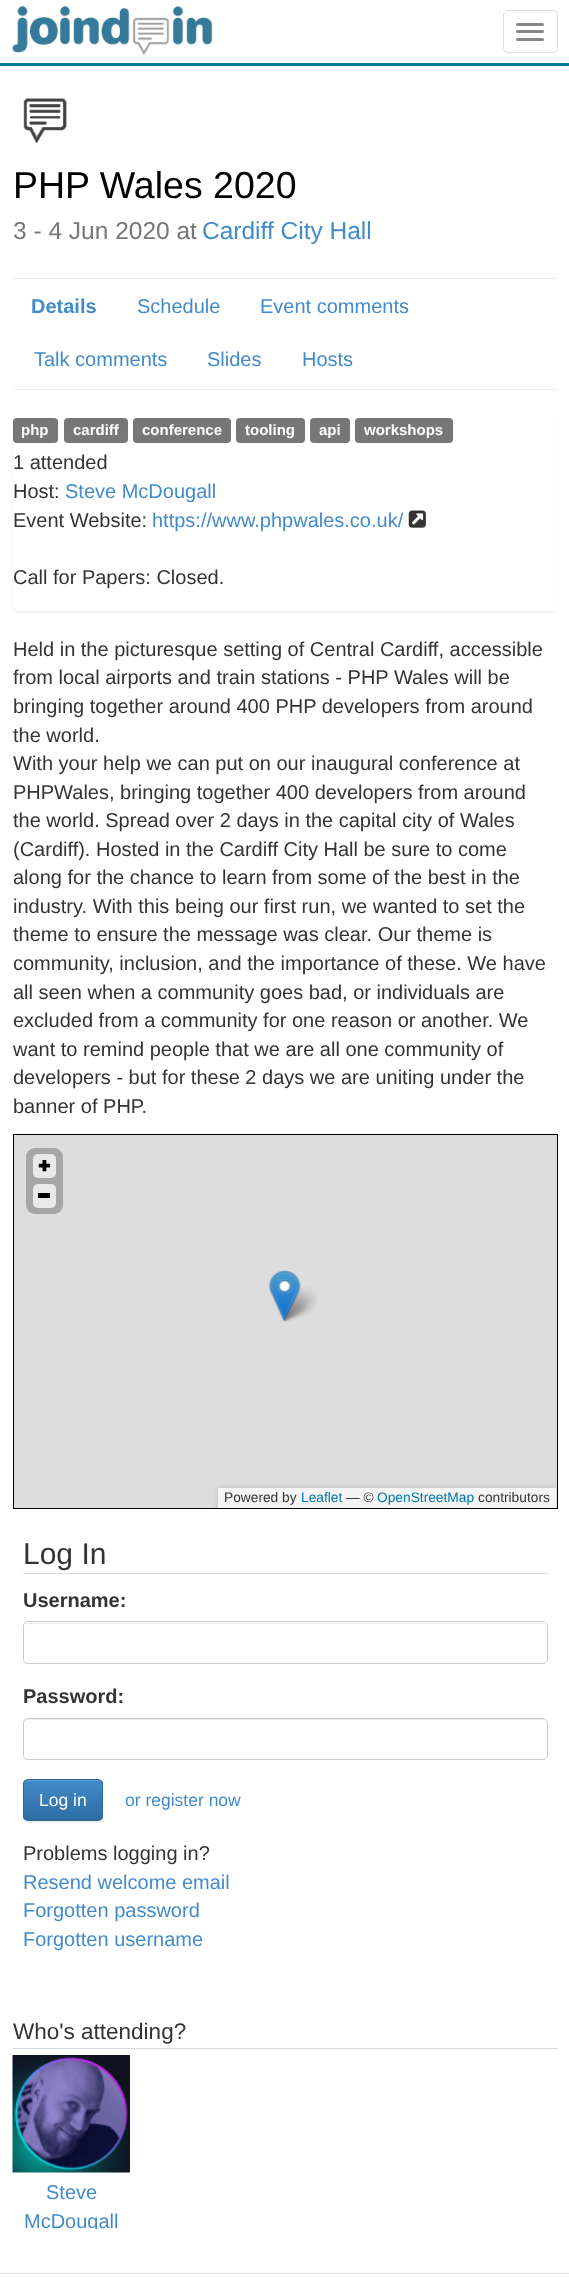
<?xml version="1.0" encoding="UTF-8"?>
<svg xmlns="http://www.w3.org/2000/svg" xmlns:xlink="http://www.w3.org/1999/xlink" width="569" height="2277">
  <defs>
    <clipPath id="clip1"><rect x="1" y="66" width="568" height="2" /></clipPath>
    <clipPath id="clip2"><rect x="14" y="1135" width="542" height="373" /></clipPath>
    <clipPath id="clip3"><path d="M 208 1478 h 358 v 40 h -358 z m 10 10 h 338 v 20 h -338 z" clip-rule="evenodd" /></clipPath>
    <clipPath id="clip4"><rect x="23" y="1779" width="80" height="42" rx="5" /></clipPath>
    <linearGradient id="g1" gradientUnits="userSpaceOnUse" x1="63" y1="1780" x2="63" y2="1820"><stop offset="0" stop-color="#428bca" /><stop offset="1" stop-color="#2d6ca2" /></linearGradient>
    <clipPath id="clip5"><rect x="13" y="2179" width="117" height="50" /></clipPath>
  </defs>
  <rect width="100%" height="100%" fill="#ffffff" />
  <g clip-path="url(#clip1)">
    <rect y="1" width="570" height="65" fill="#000000" fill-opacity="0.07" filter="blur(3px)" />
  </g>
  <rect y="63" width="569" height="3" fill="#007b97" />
  <image x="12" y="6" width="201" height="50" xlink:href="image1.png" />
  <rect x="503.5" y="10.5" width="54" height="42" rx="4.5" fill="none" stroke="#dddddd" />
  <rect x="516" y="23" width="28" height="3" rx="1.5" fill="#888888" />
  <rect x="516" y="30" width="28" height="3" rx="1.5" fill="#888888" />
  <rect x="516" y="38" width="28" height="3" rx="1.5" fill="#888888" />
  <rect x="13" y="389" width="545" height="1" fill="#eeeeee" />
  <image x="23" y="98" width="44" height="45" xlink:href="image2.png" />
  <rect x="13" y="278" width="545" height="1" fill="#eeeeee" />
  <rect x="13" y="416" width="545" height="197" rx="5" fill="#000000" fill-opacity="0.05" filter="blur(1px)" />
  <rect x="13" y="415" width="545" height="196" rx="5" fill="#ffffff" />
  <rect x="13" y="418" width="45" height="25" rx="4" fill="#777777" />
  <rect x="64" y="418" width="64" height="25" rx="4" fill="#777777" />
  <rect x="133" y="418" width="98" height="25" rx="4" fill="#777777" />
  <rect x="236" y="418" width="69" height="25" rx="4" fill="#777777" />
  <rect x="310" y="418" width="40" height="25" rx="4" fill="#777777" />
  <rect x="355" y="418" width="98" height="25" rx="4" fill="#777777" />
  <image x="408" y="510" width="18" height="18" xlink:href="image3.png" />
  <rect x="13.5" y="1134.5" width="544" height="374" fill="#dddddd" stroke="#000000" />
  <image x="280" y="1286" width="37" height="36" xlink:href="image5.png" />
  <image x="268" y="1270" width="33" height="52" xlink:href="image4.png" />
  <rect x="26" y="1148" width="37" height="66" rx="9" fill="#a6a6a6" />
  <rect x="33" y="1154" width="23" height="24" rx="5" fill="#e9e9e9" />
  <image x="38" y="1160" width="12" height="12" xlink:href="image6.png" />
  <rect x="33" y="1184" width="23" height="24" rx="5" fill="#e9e9e9" />
  <rect x="38" y="1193" width="12" height="5" fill="#000000" />
  <g clip-path="url(#clip2)">
    <g clip-path="url(#clip3)">
      <rect x="218" y="1488" width="338" height="20" fill="#bbbbbb" filter="blur(3px)" />
    </g>
  </g>
  <rect x="218" y="1488" width="338" height="20" fill="#ffffff" fill-opacity="0.7" />
  <rect x="23" y="1573" width="525" height="1" fill="#d7dcdf" />
  <path d="M 28 1624 h 514 c 3 0 4 1 4 4 v -1 c 0 -2 -2 -4 -4 -4 h -514 c -2 0 -4 2 -4 4 v 1 c 0 -3 1 -4 4 -4 z" fill="#ececec" />
  <rect x="23.5" y="1621.5" width="524" height="42" rx="4.5" fill="none" stroke="#cccccc" />
  <path d="M 28 1720 h 514 c 3 0 4 2 4 4 v -1 c 0 -2 -2 -4 -4 -4 h -514 c -2 0 -4 2 -4 4 v 1 c 0 -2 1 -4 4 -4 z" fill="#ececec" />
  <rect x="23.5" y="1718.5" width="524" height="41" rx="4.5" fill="none" stroke="#cccccc" />
  <rect x="23" y="1780" width="80" height="43" rx="5" fill="#000000" fill-opacity="0.07" filter="blur(0.5px)" />
  <g clip-path="url(#clip4)">
    <rect x="23" y="1780" width="80" height="40" fill="url(#g1)" />
  </g>
  <path d="M 28 1781 h 70 c 2 0 3 2 3 4 c 0 -8 -11 -5 -15 -5 h -46 c -5 0 -16 -3 -16 5 c 0 -2 1 -4 4 -4 z" fill="#5e9cd2" />
  <rect x="23.5" y="1779.5" width="79" height="41" rx="4.5" fill="none" stroke="#2b669a" />
  <rect x="13" y="2048" width="545" height="1" fill="#d7dcdf" />
  <image x="12" y="2055" width="118" height="118" xlink:href="image7.png" />
  <rect y="2273" width="569" height="1" fill="#d7dcdf" />
  <text x="13" y="198" style="font-family: Liberation Sans; font-size: 37.5px; fill: #000000">PHP Wales 2020</text>
  <text x="13" y="239" style="font-family: Liberation Sans; font-size: 24.5px; fill: #777777">3 - 4 Jun 2020 at</text>
  <text x="202" y="239" style="font-family: Liberation Sans; font-size: 24.5px; fill: #428bca">Cardiff City Hall</text>
  <text x="31" y="313" style="font-family: Liberation Sans; font-size: 20px; font-weight: bold; fill: #428bca">Details</text>
  <text x="137" y="313" style="font-family: Liberation Sans; font-size: 20px; fill: #428bca">Schedule</text>
  <text x="260" y="313" style="font-family: Liberation Sans; font-size: 20px; fill: #428bca">Event comments</text>
  <text x="34" y="366" style="font-family: Liberation Sans; font-size: 20px; fill: #428bca">Talk comments</text>
  <text x="207" y="366" style="font-family: Liberation Sans; font-size: 20px; fill: #428bca">Slides</text>
  <text x="302" y="366" style="font-family: Liberation Sans; font-size: 20px; fill: #428bca">Hosts</text>
  <text x="21" y="435" style="font-family: Liberation Sans; font-size: 15px; font-weight: bold; fill: #ffffff">php</text>
  <text x="73" y="435" style="font-family: Liberation Sans; font-size: 15px; font-weight: bold; fill: #ffffff">cardiff</text>
  <text x="142" y="435" style="font-family: Liberation Sans; font-size: 15px; font-weight: bold; fill: #ffffff">conference</text>
  <text x="245" y="435" style="font-family: Liberation Sans; font-size: 15px; font-weight: bold; fill: #ffffff">tooling</text>
  <text x="319" y="435" style="font-family: Liberation Sans; font-size: 15px; font-weight: bold; fill: #ffffff">api</text>
  <text x="364" y="435" style="font-family: Liberation Sans; font-size: 15px; font-weight: bold; fill: #ffffff">workshops</text>
  <text x="13" y="469" style="font-family: Liberation Sans; font-size: 20px; fill: #333333">1 attended</text>
  <text x="13" y="498" style="font-family: Liberation Sans; font-size: 20px; fill: #333333">Host:</text>
  <text x="65" y="498" style="font-family: Liberation Sans; font-size: 20px; fill: #428bca">Steve McDougall</text>
  <text x="13" y="527" style="font-family: Liberation Sans; font-size: 20px; fill: #333333">Event Website:</text>
  <text x="152" y="527" style="font-family: Liberation Sans; font-size: 20px; fill: #428bca">https://www.phpwales.co.uk/</text>
  <text x="13" y="584" style="font-family: Liberation Sans; font-size: 20px; fill: #333333">Call for Papers: Closed.</text>
  <text x="13" y="656" style="font-family: Liberation Sans; font-size: 20px; fill: #333333">Held in the picturesque setting of Central Cardiff, accessible</text>
  <text x="13" y="684" style="font-family: Liberation Sans; font-size: 20px; fill: #333333">from local airports and train stations - PHP Wales will be</text>
  <text x="13" y="713" style="font-family: Liberation Sans; font-size: 20px; fill: #333333">bringing together around 400 PHP developers from around</text>
  <text x="13" y="742" style="font-family: Liberation Sans; font-size: 20px; fill: #333333">the world.</text>
  <text x="13" y="770" style="font-family: Liberation Sans; font-size: 20px; fill: #333333">With your help we can put on our inaugural conference at</text>
  <text x="13" y="799" style="font-family: Liberation Sans; font-size: 20px; fill: #333333">PHPWales, bringing together 400 developers from around</text>
  <text x="13" y="827" style="font-family: Liberation Sans; font-size: 20px; fill: #333333">the world. Spread over 2 days in the capital city of Wales</text>
  <text x="13" y="856" style="font-family: Liberation Sans; font-size: 20px; fill: #333333">(Cardiff). Hosted in the Cardiff City Hall be sure to come</text>
  <text x="13" y="884" style="font-family: Liberation Sans; font-size: 20px; fill: #333333">along for the chance to learn from some of the best in the</text>
  <text x="13" y="913" style="font-family: Liberation Sans; font-size: 20px; fill: #333333">industry. With this being our first run, we wanted to set the</text>
  <text x="13" y="941" style="font-family: Liberation Sans; font-size: 20px; fill: #333333">theme to ensure the message was clear. Our theme is</text>
  <text x="13" y="970" style="font-family: Liberation Sans; font-size: 20px; fill: #333333">community, inclusion, and the importance of these. We have</text>
  <text x="13" y="999" style="font-family: Liberation Sans; font-size: 20px; fill: #333333">all seen when a community goes bad, or individuals are</text>
  <text x="13" y="1027" style="font-family: Liberation Sans; font-size: 20px; fill: #333333">excluded from a community for one reason or another. We</text>
  <text x="13" y="1056" style="font-family: Liberation Sans; font-size: 20px; fill: #333333">want to remind people that we are all one community of</text>
  <text x="13" y="1084" style="font-family: Liberation Sans; font-size: 20px; fill: #333333">developers - but for these 2 days we are uniting under the</text>
  <text x="13" y="1113" style="font-family: Liberation Sans; font-size: 20px; fill: #333333">banner of PHP.</text>
  <text x="224" y="1502" style="font-family: Liberation Sans; font-size: 13.75px; fill: #333333">Powered by</text>
  <text x="301" y="1502" style="font-family: Liberation Sans; font-size: 13.75px; fill: #0078a8">Leaflet</text>
  <text x="346" y="1502" style="font-family: Liberation Sans; font-size: 13.75px; fill: #333333">— ©</text>
  <text x="377" y="1502" style="font-family: Liberation Sans; font-size: 13.75px; fill: #0078a8">OpenStreetMap</text>
  <text x="478" y="1502" style="font-family: Liberation Sans; font-size: 13.75px; fill: #333333">contributors</text>
  <text x="23" y="1564" style="font-family: Liberation Sans; font-size: 30px; fill: #333333">Log In</text>
  <text x="23" y="1607" style="font-family: Liberation Sans; font-size: 20px; font-weight: bold; fill: #333333">Username:</text>
  <text x="23" y="1703" style="font-family: Liberation Sans; font-size: 20px; font-weight: bold; fill: #333333">Password:</text>
  <text x="39" y="1806" style="font-family: Liberation Sans; font-size: 17.5px; fill: #ffffff">Log in</text>
  <text x="125" y="1806" style="font-family: Liberation Sans; font-size: 17.5px; fill: #428bca">or register now</text>
  <text x="23" y="1860" style="font-family: Liberation Sans; font-size: 20px; fill: #333333">Problems logging in?</text>
  <text x="23" y="1889" style="font-family: Liberation Sans; font-size: 20px; fill: #428bca">Resend welcome email</text>
  <text x="23" y="1917" style="font-family: Liberation Sans; font-size: 20px; fill: #428bca">Forgotten password</text>
  <text x="23" y="1946" style="font-family: Liberation Sans; font-size: 20px; fill: #428bca">Forgotten username</text>
  <text x="13" y="2039" style="font-family: Liberation Sans; font-size: 22.5px; fill: #333333">Who's attending?</text>
  <text x="46" y="2199" style="font-family: Liberation Sans; font-size: 20px; fill: #428bca">Steve</text>
  <g clip-path="url(#clip5)">
    <text x="24" y="2228" style="font-family: Liberation Sans; font-size: 20px; fill: #428bca">McDougall</text>
  </g>
</svg>
